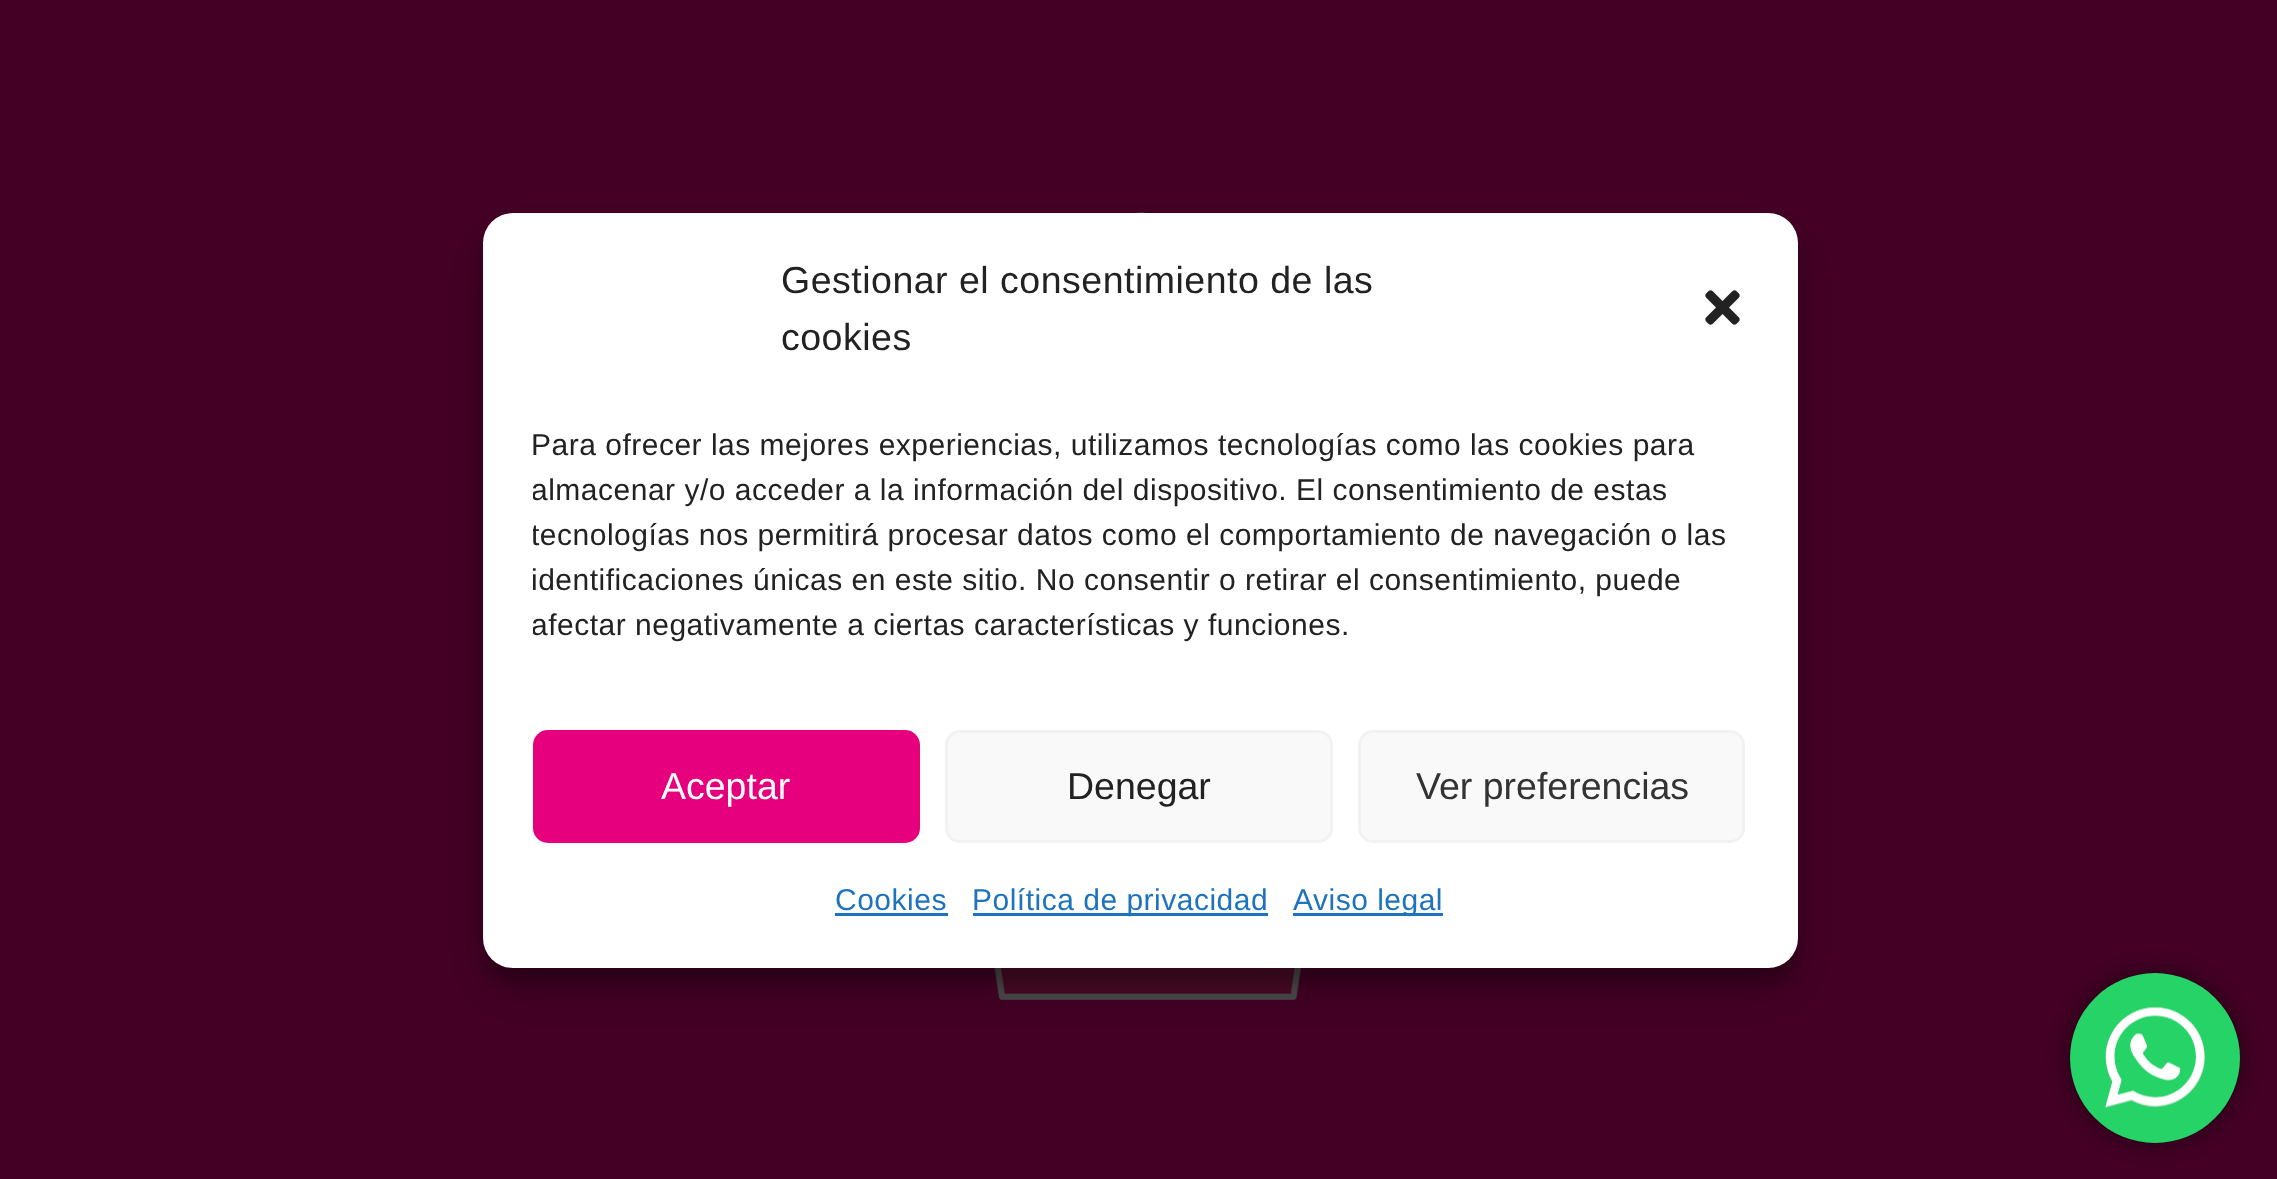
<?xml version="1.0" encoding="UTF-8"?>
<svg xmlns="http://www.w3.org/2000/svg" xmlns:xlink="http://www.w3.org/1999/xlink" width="2277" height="1179">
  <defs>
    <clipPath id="clip1"><rect x="533" y="423" width="1215" height="237" /></clipPath>
  </defs>
  <rect width="100%" height="100%" fill="#450026" />
  <image x="993" y="212" width="309" height="788" xlink:href="image1.png" />
  <rect x="483" y="228" width="1315" height="755" rx="30" fill="#000000" fill-opacity="0.23" filter="blur(7.5px)" />
  <rect x="483" y="238" width="1315" height="755" rx="30" fill="#000000" fill-opacity="0.19" filter="blur(25px)" />
  <rect x="483" y="213" width="1315" height="755" rx="30" fill="#ffffff" />
  <image x="1705" y="290" width="35" height="35" xlink:href="image2.png" />
  <rect x="534.5" y="731.5" width="384" height="110" rx="13.5" fill="#e6007e" stroke="#e6007e" stroke-width="3" />
  <rect x="946.5" y="731.5" width="385" height="110" rx="13.5" fill="#f9f9f9" stroke="#f2f2f2" stroke-width="3" />
  <rect x="1359.5" y="731.5" width="384" height="110" rx="13.5" fill="#f9f9f9" stroke="#f2f2f2" stroke-width="3" />
  <rect x="835" y="913" width="113" height="3" fill="#1e73be" />
  <rect x="973" y="913" width="295" height="3" fill="#1e73be" />
  <rect x="1293" y="913" width="150" height="3" fill="#1e73be" />
  <rect x="2070" y="973" width="170" height="170" rx="85" fill="#000000" fill-opacity="0.5" filter="blur(14px)" />
  <circle cx="2155" cy="1058" r="85" fill="#25d366" />
  <image x="2105" y="1007" width="100" height="101" xlink:href="image3.png" />
  <text x="781" y="293" style="font-family: Liberation Sans; font-size: 37.5px; letter-spacing: 0.5px; fill: #222222">Gestionar el consentimiento de las</text>
  <text x="781" y="350" style="font-family: Liberation Sans; font-size: 37.5px; letter-spacing: 0.5px; fill: #222222">cookies</text>
  <text x="531" y="455" style="font-family: Liberation Sans; font-size: 30px; letter-spacing: 0.5px; fill: #222222">Para ofrecer las mejores experiencias, utilizamos tecnologías como las cookies para</text>
  <g clip-path="url(#clip1)">
    <text x="531" y="500" style="font-family: Liberation Sans; font-size: 30px; letter-spacing: 0.5px; fill: #222222">almacenar y/o acceder a la información del dispositivo. El consentimiento de estas</text>
    <text x="531" y="545" style="font-family: Liberation Sans; font-size: 30px; letter-spacing: 0.5px; fill: #222222">tecnologías nos permitirá procesar datos como el comportamiento de navegación o las</text>
  </g>
  <text x="531" y="590" style="font-family: Liberation Sans; font-size: 30px; letter-spacing: 0.5px; fill: #222222">identificaciones únicas en este sitio. No consentir o retirar el consentimiento, puede</text>
  <g clip-path="url(#clip1)">
    <text x="531" y="635" style="font-family: Liberation Sans; font-size: 30px; letter-spacing: 0.5px; fill: #222222">afectar negativamente a ciertas características y funciones.</text>
  </g>
  <text x="661" y="799" style="font-family: Liberation Sans; font-size: 37.5px; fill: #ffffff">Aceptar</text>
  <text x="1067" y="799" style="font-family: Liberation Sans; font-size: 37.5px; fill: #222222">Denegar</text>
  <text x="1416" y="799" style="font-family: Liberation Sans; font-size: 37.5px; fill: #333333">Ver preferencias</text>
  <text x="835" y="910" style="font-family: Liberation Sans; font-size: 30px; letter-spacing: 0.5px; fill: #1e73be">Cookies</text>
  <text x="972" y="910" style="font-family: Liberation Sans; font-size: 30px; letter-spacing: 0.5px; fill: #1e73be">Política de privacidad</text>
  <text x="1293" y="910" style="font-family: Liberation Sans; font-size: 30px; letter-spacing: 0.5px; fill: #1e73be">Aviso legal</text>
</svg>
